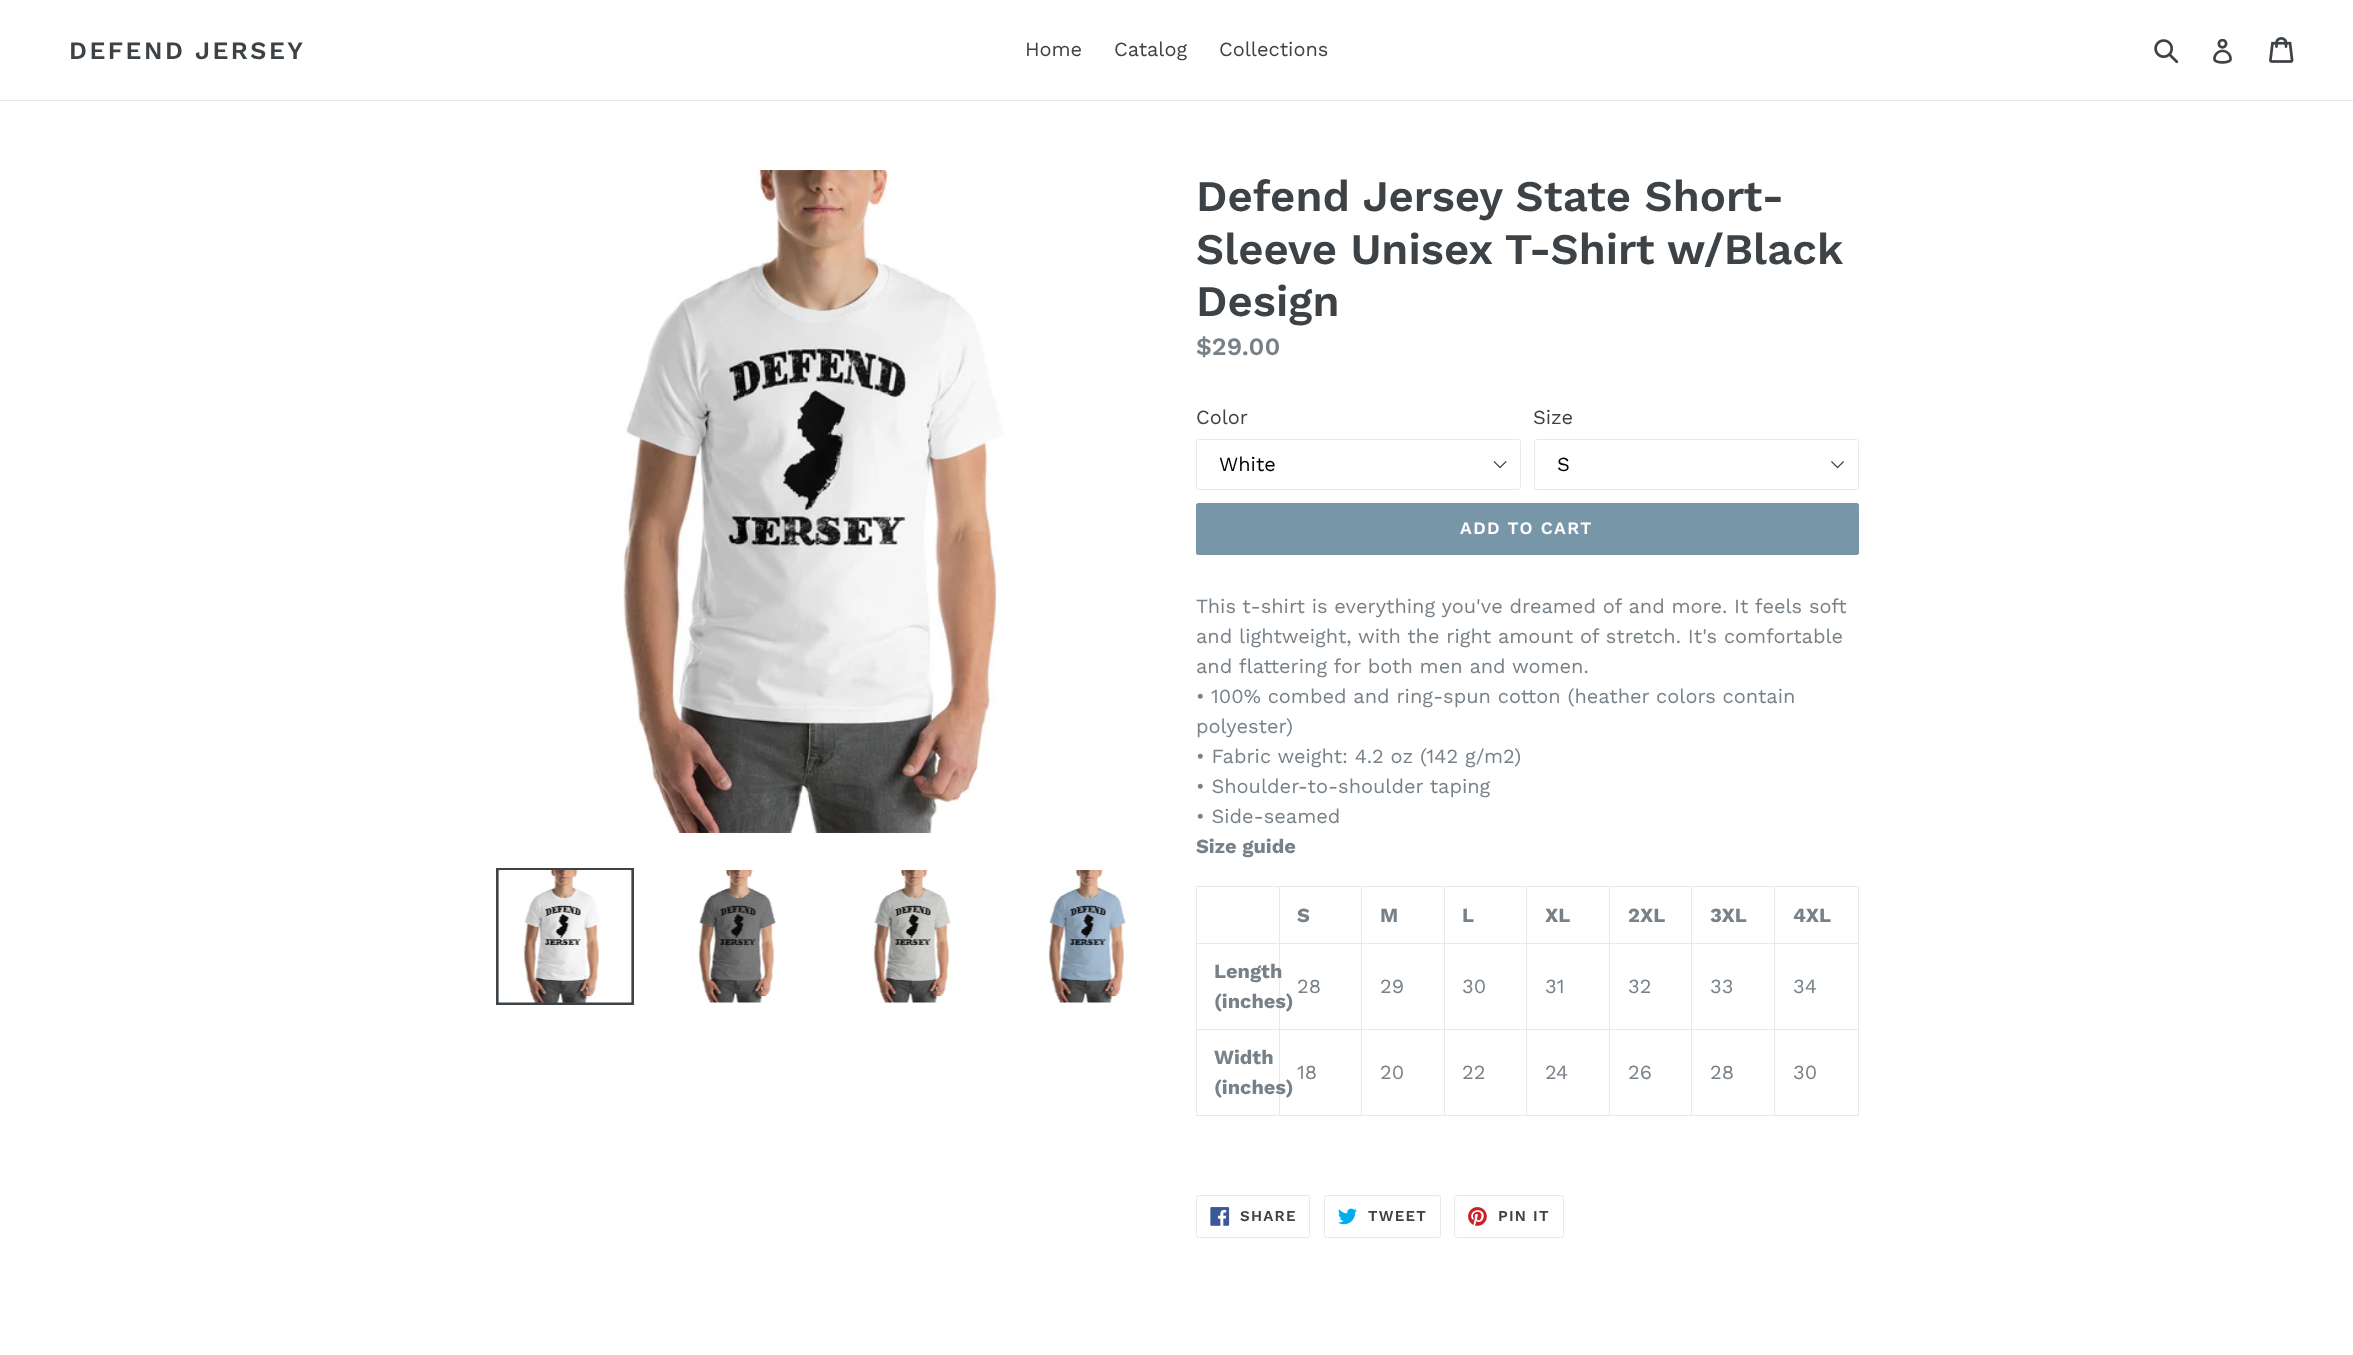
<?xml version="1.0" encoding="UTF-8"?>
<svg xmlns="http://www.w3.org/2000/svg" xmlns:xlink="http://www.w3.org/1999/xlink" width="2353" height="1355">
  <rect width="100%" height="100%" fill="#ffffff" />
  <rect y="100" width="2353" height="1" fill="#e8e9eb" />
  <image x="2154" y="39" width="25" height="25" xlink:href="image1.png" />
  <image x="2213" y="39" width="19" height="25" xlink:href="image2.png" />
  <image x="2269" y="37" width="25" height="26" xlink:href="image3.png" />
  <image x="623" y="170" width="381" height="663" xlink:href="image4.png" />
  <rect x="497.5" y="869.5" width="135" height="134" fill="none" stroke="#3d4246" stroke-width="3" />
  <image x="498" y="870" width="134" height="133" xlink:href="image5.png" />
  <image x="698" y="870" width="78" height="133" xlink:href="image6.png" />
  <image x="873" y="870" width="78" height="133" xlink:href="image7.png" />
  <image x="1048" y="870" width="78" height="133" xlink:href="image8.png" />
  <image x="1493" y="461" width="14" height="8" xlink:href="image9.png" />
  <rect x="1196.5" y="439.5" width="324" height="50" rx="2" fill="none" stroke="#e8e9eb" />
  <image x="1831" y="461" width="13" height="8" xlink:href="image10.png" />
  <rect x="1534.5" y="439.5" width="324" height="50" rx="2" fill="none" stroke="#e8e9eb" />
  <rect x="1196" y="503" width="663" height="52" rx="2.5" fill="#7796a8" />
  <rect x="1774" y="886" width="85" height="1" fill="#e8e9eb" />
  <rect x="1774" y="943" width="85" height="1" fill="#e8e9eb" />
  <rect x="1774" y="1029" width="85" height="1" fill="#e8e9eb" />
  <rect x="1858" y="1029" width="1" height="87" fill="#e8e9eb" />
  <rect x="1774" y="1115" width="85" height="1" fill="#e8e9eb" />
  <rect x="1774" y="1029" width="1" height="87" fill="#e8e9eb" />
  <rect x="1691" y="1029" width="84" height="1" fill="#e8e9eb" />
  <rect x="1774" y="943" width="1" height="87" fill="#e8e9eb" />
  <rect x="1691" y="943" width="84" height="1" fill="#e8e9eb" />
  <rect x="1774" y="886" width="1" height="58" fill="#e8e9eb" />
  <rect x="1691" y="886" width="84" height="1" fill="#e8e9eb" />
  <rect x="1691" y="1115" width="84" height="1" fill="#e8e9eb" />
  <rect x="1691" y="1029" width="1" height="87" fill="#e8e9eb" />
  <rect x="1609" y="1029" width="84" height="1" fill="#e8e9eb" />
  <rect x="1691" y="943" width="1" height="87" fill="#e8e9eb" />
  <rect x="1609" y="943" width="84" height="1" fill="#e8e9eb" />
  <rect x="1691" y="886" width="1" height="58" fill="#e8e9eb" />
  <rect x="1609" y="886" width="84" height="1" fill="#e8e9eb" />
  <rect x="1609" y="1115" width="84" height="1" fill="#e8e9eb" />
  <rect x="1609" y="1029" width="1" height="87" fill="#e8e9eb" />
  <rect x="1526" y="1029" width="84" height="1" fill="#e8e9eb" />
  <rect x="1609" y="943" width="1" height="87" fill="#e8e9eb" />
  <rect x="1526" y="943" width="84" height="1" fill="#e8e9eb" />
  <rect x="1609" y="886" width="1" height="58" fill="#e8e9eb" />
  <rect x="1526" y="886" width="84" height="1" fill="#e8e9eb" />
  <rect x="1526" y="1115" width="84" height="1" fill="#e8e9eb" />
  <rect x="1526" y="1029" width="1" height="87" fill="#e8e9eb" />
  <rect x="1444" y="1029" width="84" height="1" fill="#e8e9eb" />
  <rect x="1526" y="943" width="1" height="87" fill="#e8e9eb" />
  <rect x="1444" y="943" width="84" height="1" fill="#e8e9eb" />
  <rect x="1526" y="886" width="1" height="58" fill="#e8e9eb" />
  <rect x="1444" y="886" width="84" height="1" fill="#e8e9eb" />
  <rect x="1444" y="1115" width="84" height="1" fill="#e8e9eb" />
  <rect x="1444" y="1029" width="1" height="87" fill="#e8e9eb" />
  <rect x="1361" y="1029" width="84" height="1" fill="#e8e9eb" />
  <rect x="1444" y="943" width="1" height="87" fill="#e8e9eb" />
  <rect x="1361" y="943" width="84" height="1" fill="#e8e9eb" />
  <rect x="1444" y="886" width="1" height="58" fill="#e8e9eb" />
  <rect x="1361" y="886" width="84" height="1" fill="#e8e9eb" />
  <rect x="1361" y="1115" width="84" height="1" fill="#e8e9eb" />
  <rect x="1361" y="1029" width="1" height="87" fill="#e8e9eb" />
  <rect x="1279" y="1029" width="84" height="1" fill="#e8e9eb" />
  <rect x="1361" y="943" width="1" height="87" fill="#e8e9eb" />
  <rect x="1279" y="943" width="84" height="1" fill="#e8e9eb" />
  <rect x="1361" y="886" width="1" height="58" fill="#e8e9eb" />
  <rect x="1279" y="886" width="84" height="1" fill="#e8e9eb" />
  <rect x="1279" y="1115" width="84" height="1" fill="#e8e9eb" />
  <rect x="1279" y="1029" width="1" height="87" fill="#e8e9eb" />
  <rect x="1196" y="1029" width="84" height="1" fill="#e8e9eb" />
  <rect x="1279" y="943" width="1" height="87" fill="#e8e9eb" />
  <rect x="1196" y="943" width="84" height="1" fill="#e8e9eb" />
  <rect x="1279" y="886" width="1" height="58" fill="#e8e9eb" />
  <rect x="1196" y="886" width="84" height="1" fill="#e8e9eb" />
  <rect x="1196" y="1115" width="84" height="1" fill="#e8e9eb" />
  <rect x="1196" y="1029" width="1" height="87" fill="#e8e9eb" />
  <rect x="1196" y="943" width="1" height="87" fill="#e8e9eb" />
  <rect x="1196" y="886" width="1" height="58" fill="#e8e9eb" />
  <rect x="1858" y="943" width="1" height="87" fill="#e8e9eb" />
  <rect x="1858" y="886" width="1" height="58" fill="#e8e9eb" />
  <rect x="1196.5" y="1195.5" width="113" height="42" rx="2" fill="none" stroke="#e8e9eb" />
  <image x="1210" y="1207" width="20" height="19" xlink:href="image11.png" />
  <rect x="1324.5" y="1195.5" width="116" height="42" rx="2" fill="none" stroke="#e8e9eb" />
  <image x="1338" y="1208" width="19" height="17" xlink:href="image12.png" />
  <rect x="1454.5" y="1195.5" width="109" height="42" rx="2" fill="none" stroke="#e8e9eb" />
  <image x="1468" y="1207" width="19" height="19" xlink:href="image13.png" />
  <text x="69" y="59" style="font-family: Work Sans; font-size: 25px; font-weight: 600; letter-spacing: 2.5px; fill: #3d4246">DEFEND JERSEY</text>
  <text x="1025" y="56" style="font-family: Work Sans; font-size: 20px; fill: #3d4246">Home</text>
  <text x="1114" y="56" style="font-family: Work Sans; font-size: 20px; fill: #3d4246">Catalog</text>
  <text x="1219" y="56" style="font-family: Work Sans; font-size: 20px; fill: #3d4246">Collections</text>
  <text x="1196" y="211" style="font-family: Work Sans; font-size: 43.75px; font-weight: 600; fill: #3d4246">Defend Jersey State Short-</text>
  <text x="1196" y="264" style="font-family: Work Sans; font-size: 43.75px; font-weight: 600; fill: #3d4246">Sleeve Unisex T-Shirt w/Black</text>
  <text x="1196" y="316" style="font-family: Work Sans; font-size: 43.75px; font-weight: 600; fill: #3d4246">Design</text>
  <text x="1196" y="355" style="font-family: Work Sans; font-size: 25px; font-weight: 600; fill: #788188">$29.00</text>
  <text x="1196" y="424" style="font-family: Work Sans; font-size: 20px; fill: #3d4246">Color</text>
  <text x="1219" y="471" style="font-family: Work Sans; font-size: 20px; fill: #000000">White</text>
  <text x="1533" y="424" style="font-family: Work Sans; font-size: 20px; fill: #3d4246">Size</text>
  <text x="1557" y="471" style="font-family: Work Sans; font-size: 20px; fill: #000000">S</text>
  <text x="1460" y="534" style="font-family: Work Sans; font-size: 17.5px; font-weight: 600; letter-spacing: 1.4px; fill: #ffffff">ADD TO CART</text>
  <text x="1196" y="613" style="font-family: Work Sans; font-size: 20px; fill: #788188">This t-shirt is everything you've dreamed of and more. It feels soft</text>
  <text x="1196" y="643" style="font-family: Work Sans; font-size: 20px; fill: #788188">and lightweight, with the right amount of stretch. It's comfortable</text>
  <text x="1196" y="673" style="font-family: Work Sans; font-size: 20px; fill: #788188">and flattering for both men and women.</text>
  <text x="1196" y="703" style="font-family: Work Sans; font-size: 20px; fill: #788188">• 100% combed and ring-spun cotton (heather colors contain</text>
  <text x="1196" y="733" style="font-family: Work Sans; font-size: 20px; fill: #788188">polyester)</text>
  <text x="1196" y="763" style="font-family: Work Sans; font-size: 20px; fill: #788188">• Fabric weight: 4.2 oz (142 g/m2)</text>
  <text x="1196" y="793" style="font-family: Work Sans; font-size: 20px; fill: #788188">• Shoulder-to-shoulder taping</text>
  <text x="1196" y="823" style="font-family: Work Sans; font-size: 20px; fill: #788188">• Side-seamed</text>
  <text x="1196" y="853" style="font-family: Work Sans; font-size: 20px; font-weight: bold; fill: #788188">Size guide</text>
  <text x="1297" y="922" style="font-family: Work Sans; font-size: 20px; font-weight: bold; fill: #788188">S</text>
  <text x="1380" y="922" style="font-family: Work Sans; font-size: 20px; font-weight: bold; fill: #788188">M</text>
  <text x="1462" y="922" style="font-family: Work Sans; font-size: 20px; font-weight: bold; fill: #788188">L</text>
  <text x="1545" y="922" style="font-family: Work Sans; font-size: 20px; font-weight: bold; fill: #788188">XL</text>
  <text x="1628" y="922" style="font-family: Work Sans; font-size: 20px; font-weight: bold; fill: #788188">2XL</text>
  <text x="1710" y="922" style="font-family: Work Sans; font-size: 20px; font-weight: bold; fill: #788188">3XL</text>
  <text x="1793" y="922" style="font-family: Work Sans; font-size: 20px; font-weight: bold; fill: #788188">4XL</text>
  <text x="1214" y="978" style="font-family: Work Sans; font-size: 20px; font-weight: bold; fill: #788188">Length</text>
  <text x="1214" y="1008" style="font-family: Work Sans; font-size: 20px; font-weight: bold; fill: #788188">(inches)</text>
  <text x="1297" y="993" style="font-family: Work Sans; font-size: 20px; fill: #788188">28</text>
  <text x="1380" y="993" style="font-family: Work Sans; font-size: 20px; fill: #788188">29</text>
  <text x="1462" y="993" style="font-family: Work Sans; font-size: 20px; fill: #788188">30</text>
  <text x="1545" y="993" style="font-family: Work Sans; font-size: 20px; fill: #788188">31</text>
  <text x="1628" y="993" style="font-family: Work Sans; font-size: 20px; fill: #788188">32</text>
  <text x="1710" y="993" style="font-family: Work Sans; font-size: 20px; fill: #788188">33</text>
  <text x="1793" y="993" style="font-family: Work Sans; font-size: 20px; fill: #788188">34</text>
  <text x="1214" y="1064" style="font-family: Work Sans; font-size: 20px; font-weight: bold; fill: #788188">Width</text>
  <text x="1214" y="1094" style="font-family: Work Sans; font-size: 20px; font-weight: bold; fill: #788188">(inches)</text>
  <text x="1297" y="1079" style="font-family: Work Sans; font-size: 20px; fill: #788188">18</text>
  <text x="1380" y="1079" style="font-family: Work Sans; font-size: 20px; fill: #788188">20</text>
  <text x="1462" y="1079" style="font-family: Work Sans; font-size: 20px; fill: #788188">22</text>
  <text x="1545" y="1079" style="font-family: Work Sans; font-size: 20px; fill: #788188">24</text>
  <text x="1628" y="1079" style="font-family: Work Sans; font-size: 20px; fill: #788188">26</text>
  <text x="1710" y="1079" style="font-family: Work Sans; font-size: 20px; fill: #788188">28</text>
  <text x="1793" y="1079" style="font-family: Work Sans; font-size: 20px; fill: #788188">30</text>
  <text x="1240" y="1221" style="font-family: Work Sans; font-size: 15px; font-weight: 600; letter-spacing: 1.25px; fill: #3d4246">SHARE</text>
  <text x="1368" y="1221" style="font-family: Work Sans; font-size: 15px; font-weight: 600; letter-spacing: 1.25px; fill: #3d4246">TWEET</text>
  <text x="1498" y="1221" style="font-family: Work Sans; font-size: 15px; font-weight: 600; letter-spacing: 1.25px; fill: #3d4246">PIN IT</text>
</svg>
